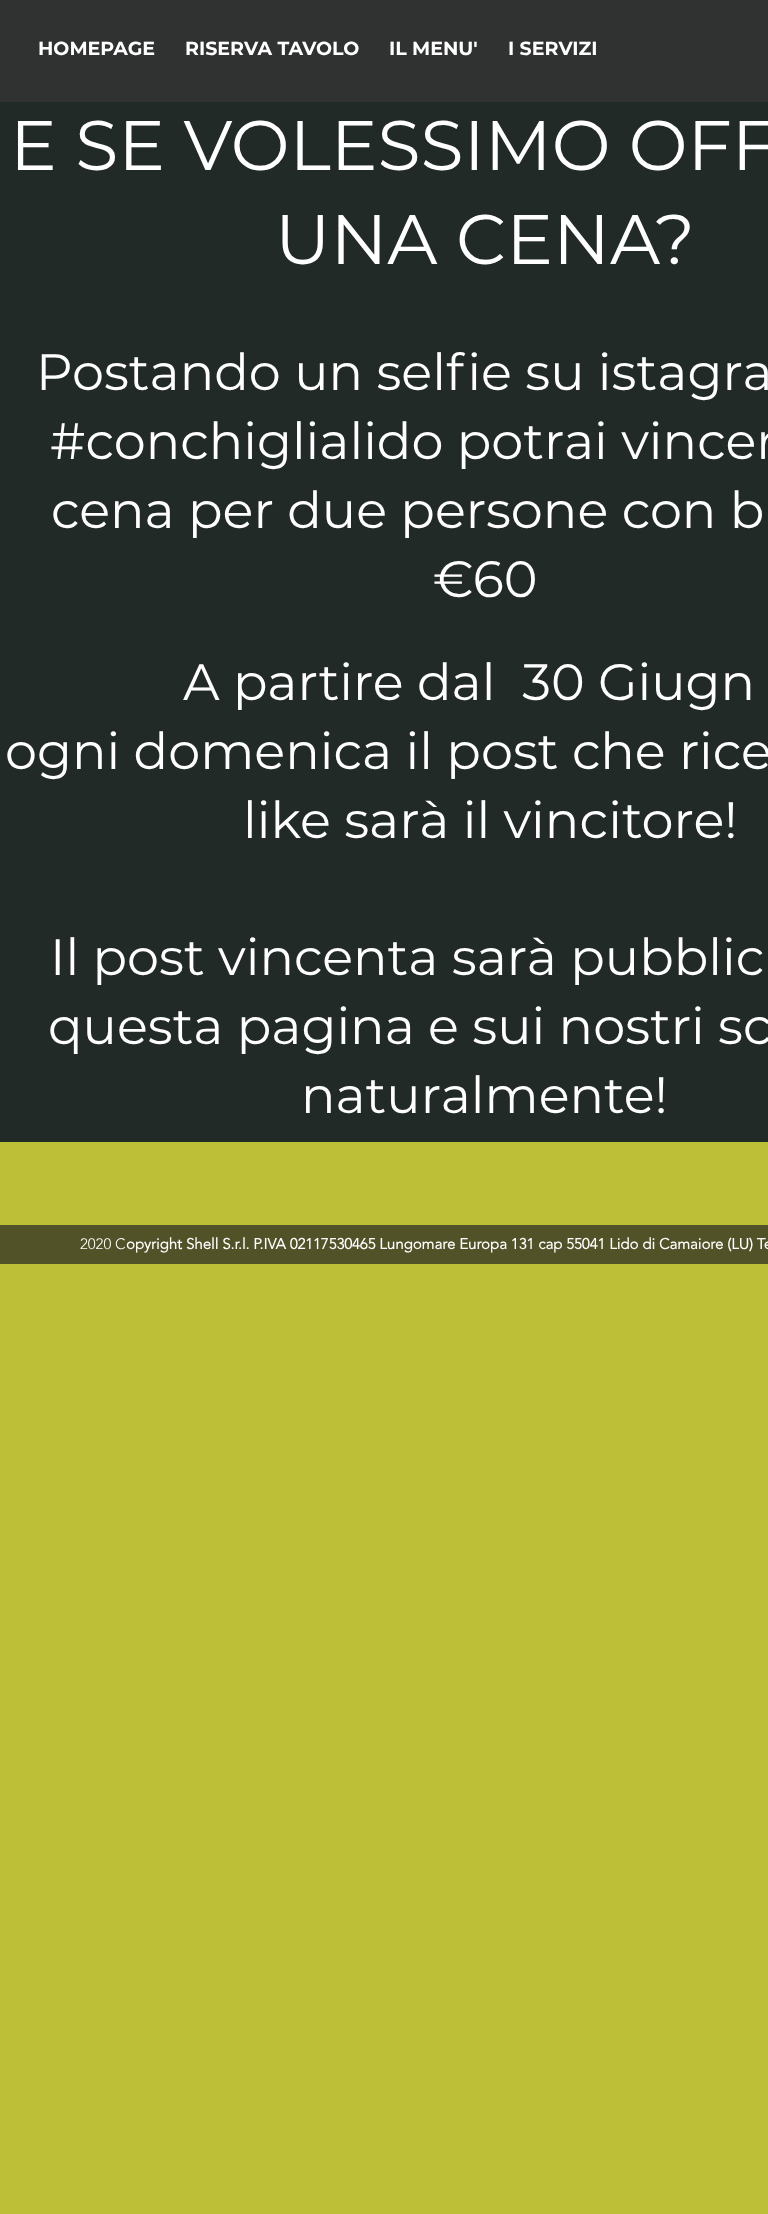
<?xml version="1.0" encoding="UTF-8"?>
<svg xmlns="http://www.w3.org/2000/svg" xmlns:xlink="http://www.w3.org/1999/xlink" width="768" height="2214">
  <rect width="100%" height="100%" fill="#bdbf37" />
  <rect width="768" height="102" fill="#303131" />
  <rect y="102" width="768" height="1040" fill="#222a28" />
  <rect y="1225" width="768" height="39" fill="#525229" />
  <text x="38" y="55" style="font-family: Montserrat; font-size: 19px; font-weight: bold; fill: #ffffff">HOMEPAGE</text>
  <text x="185" y="55" style="font-family: Montserrat; font-size: 19px; font-weight: bold; fill: #ffffff">RISERVA TAVOLO</text>
  <text x="389" y="55" style="font-family: Montserrat; font-size: 19px; font-weight: bold; fill: #ffffff">IL MENU'</text>
  <text x="508" y="55" style="font-family: Montserrat; font-size: 19px; font-weight: bold; fill: #ffffff">I SERVIZI</text>
  <text x="10" y="170" style="font-family: Montserrat; font-size: 70px; fill: #ffffff">E SE VOLESSIMO OFF</text>
  <text x="275" y="264" style="font-family: Montserrat; font-size: 70px; fill: #ffffff">UNA CENA?</text>
  <text x="36" y="390" style="font-family: Montserrat; font-size: 51px; fill: #ffffff">Postando un selfie su istagra</text>
  <text x="50" y="459" style="font-family: Montserrat; font-size: 51px; fill: #ffffff">#conchiglialido potrai vincer</text>
  <text x="51" y="528" style="font-family: Montserrat; font-size: 51px; fill: #ffffff">cena per due persone con b</text>
  <text x="433" y="597" style="font-family: Montserrat; font-size: 51px; fill: #ffffff">€60</text>
  <text x="183" y="700" style="font-family: Montserrat; font-size: 51px; fill: #ffffff" xml:space="preserve">A partire dal  30 Giugn</text>
  <text x="5" y="769" style="font-family: Montserrat; font-size: 51px; fill: #ffffff">ogni domenica il post che rice</text>
  <text x="243" y="838" style="font-family: Montserrat; font-size: 51px; fill: #ffffff">like sarà il vincitore!</text>
  <text x="50" y="975" style="font-family: Montserrat; font-size: 51px; fill: #ffffff">Il post vincenta sarà pubblic</text>
  <text x="48" y="1044" style="font-family: Montserrat; font-size: 51px; fill: #ffffff">questa pagina e sui nostri sc</text>
  <text x="301" y="1113" style="font-family: Montserrat; font-size: 51px; fill: #ffffff">naturalmente!</text>
  <text x="80" y="1249" style="font-family: 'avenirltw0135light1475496'; font-size: 15px; font-weight: 300; fill: #ffffff">2020 C</text>
  <text x="126" y="1249" style="font-family: 'avenirltw0135light1475496'; font-size: 15px; font-weight: bold; fill: #ffffff">opyright Shell S.r.l. P.IVA 02117530465 Lungomare Europa 131 cap 55041 Lido di Camaiore (LU) Te</text>
</svg>
